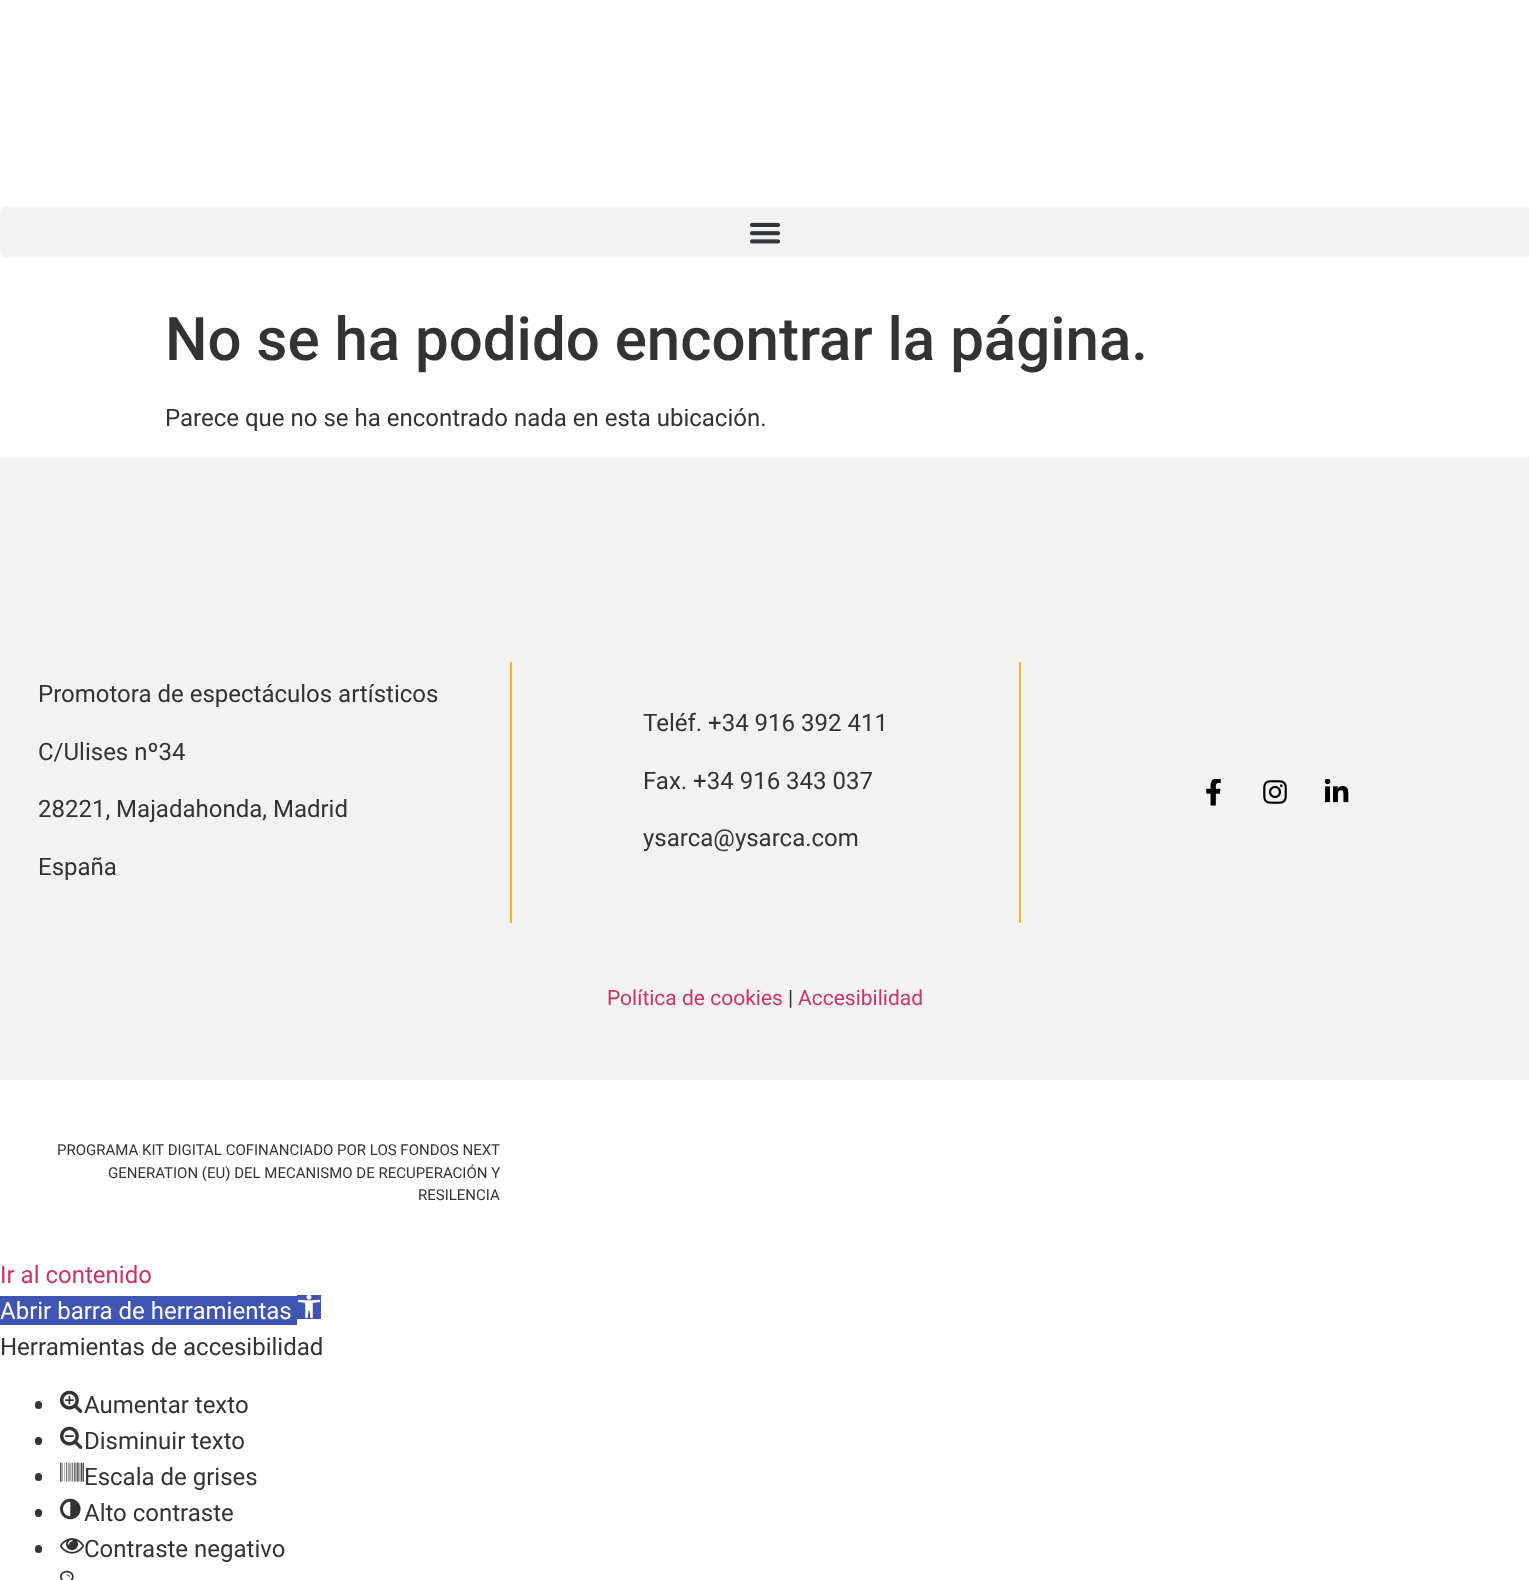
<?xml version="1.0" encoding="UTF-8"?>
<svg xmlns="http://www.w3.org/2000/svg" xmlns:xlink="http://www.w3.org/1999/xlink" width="1529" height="1580">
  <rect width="100%" height="100%" fill="#ffffff" />
  <rect y="207" width="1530" height="50" rx="5" fill="#f2f2f2" />
  <image x="749" y="222" width="32" height="22" xlink:href="image1.png" />
  <rect y="458" width="1529" height="622" fill="#f2f2f2" />
  <rect x="1019" y="662" width="2" height="261" fill="#f8b328" />
  <rect x="510" y="662" width="2" height="261" fill="#f8b328" />
  <image x="1206" y="779" width="15" height="27" xlink:href="image2.png" />
  <image x="1263" y="780" width="24" height="24" xlink:href="image3.png" />
  <image x="1324" y="779" width="25" height="24" xlink:href="image4.png" />
  <rect y="1296" width="297" height="29" fill="#4054b2" />
  <rect x="297" y="1295" width="24" height="24" fill="#4054b2" />
  <image x="297" y="1295" width="24" height="24" xlink:href="image5.png" />
  <rect x="35" y="1401" width="7" height="8" rx="3.5" fill="#333333" />
  <image x="60" y="1390" width="23" height="23" xlink:href="image6.png" />
  <rect x="35" y="1437" width="7" height="8" rx="3.5" fill="#333333" />
  <image x="60" y="1426" width="23" height="23" xlink:href="image7.png" />
  <rect x="35" y="1473" width="7" height="8" rx="3.5" fill="#333333" />
  <image x="60" y="1462" width="24" height="20" xlink:href="image8.png" />
  <rect x="35" y="1509" width="7" height="8" rx="3.5" fill="#333333" />
  <image x="60" y="1498" width="21" height="22" xlink:href="image9.png" />
  <rect x="35" y="1545" width="7" height="8" rx="3.5" fill="#333333" />
  <image x="60" y="1538" width="24" height="16" xlink:href="image10.png" />
  <image x="60" y="1570" width="14" height="10" xlink:href="image11.png" />
  <text x="165" y="360" style="font-family: Roboto; font-size: 60px; font-weight: 500; fill: #333333">No se ha podido encontrar la página.</text>
  <text x="165" y="426" style="font-family: Roboto; font-size: 24px; fill: #333333">Parece que no se ha encontrado nada en esta ubicación.</text>
  <text x="38" y="702" style="font-family: Roboto; font-size: 24px; fill: #333333">Promotora de espectáculos artísticos</text>
  <text x="38" y="760" style="font-family: Roboto; font-size: 24px; fill: #333333">C/Ulises nº34</text>
  <text x="38" y="817" style="font-family: Roboto; font-size: 24px; fill: #333333">28221, Majadahonda, Madrid</text>
  <text x="38" y="875" style="font-family: Roboto; font-size: 24px; fill: #333333">España</text>
  <text x="643" y="731" style="font-family: Roboto; font-size: 24px; fill: #333333">Teléf. +34 916 392 411</text>
  <text x="643" y="789" style="font-family: Roboto; font-size: 24px; fill: #333333">Fax. +34 916 343 037</text>
  <text x="643" y="846" style="font-family: Roboto; font-size: 24px; fill: #333333">ysarca@ysarca.com</text>
  <text x="607" y="1005" style="font-family: Roboto; font-size: 21px; fill: #cc3366">Política de cookies</text>
  <text x="788" y="1005" style="font-family: Roboto; font-size: 21px; fill: #333333">|</text>
  <text x="798" y="1005" style="font-family: Roboto; font-size: 21px; fill: #cc3366">Accesibilidad</text>
  <text x="57" y="1155" style="font-family: Roboto; font-size: 15px; fill: #333333">PROGRAMA KIT DIGITAL COFINANCIADO POR LOS FONDOS NEXT</text>
  <text x="108" y="1178" style="font-family: Roboto; font-size: 15px; fill: #333333">GENERATION (EU) DEL MECANISMO DE RECUPERACIÓN Y</text>
  <text x="418" y="1200" style="font-family: Roboto; font-size: 15px; fill: #333333">RESILENCIA</text>
  <text x="0" y="1283" style="font-family: Roboto; font-size: 24px; fill: #cc3366">Ir al contenido</text>
  <text x="0" y="1319" style="font-family: Roboto; font-size: 24px; fill: #ffffff">Abrir barra de herramientas</text>
  <text x="0" y="1355" style="font-family: Roboto; font-size: 24px; fill: #333333">Herramientas de accesibilidad</text>
  <text x="84" y="1413" style="font-family: Roboto; font-size: 24px; fill: #333333">Aumentar texto</text>
  <text x="84" y="1449" style="font-family: Roboto; font-size: 24px; fill: #333333">Disminuir texto</text>
  <text x="84" y="1485" style="font-family: Roboto; font-size: 24px; fill: #333333">Escala de grises</text>
  <text x="84" y="1521" style="font-family: Roboto; font-size: 24px; fill: #333333">Alto contraste</text>
  <text x="84" y="1557" style="font-family: Roboto; font-size: 24px; fill: #333333">Contraste negativo</text>
</svg>
